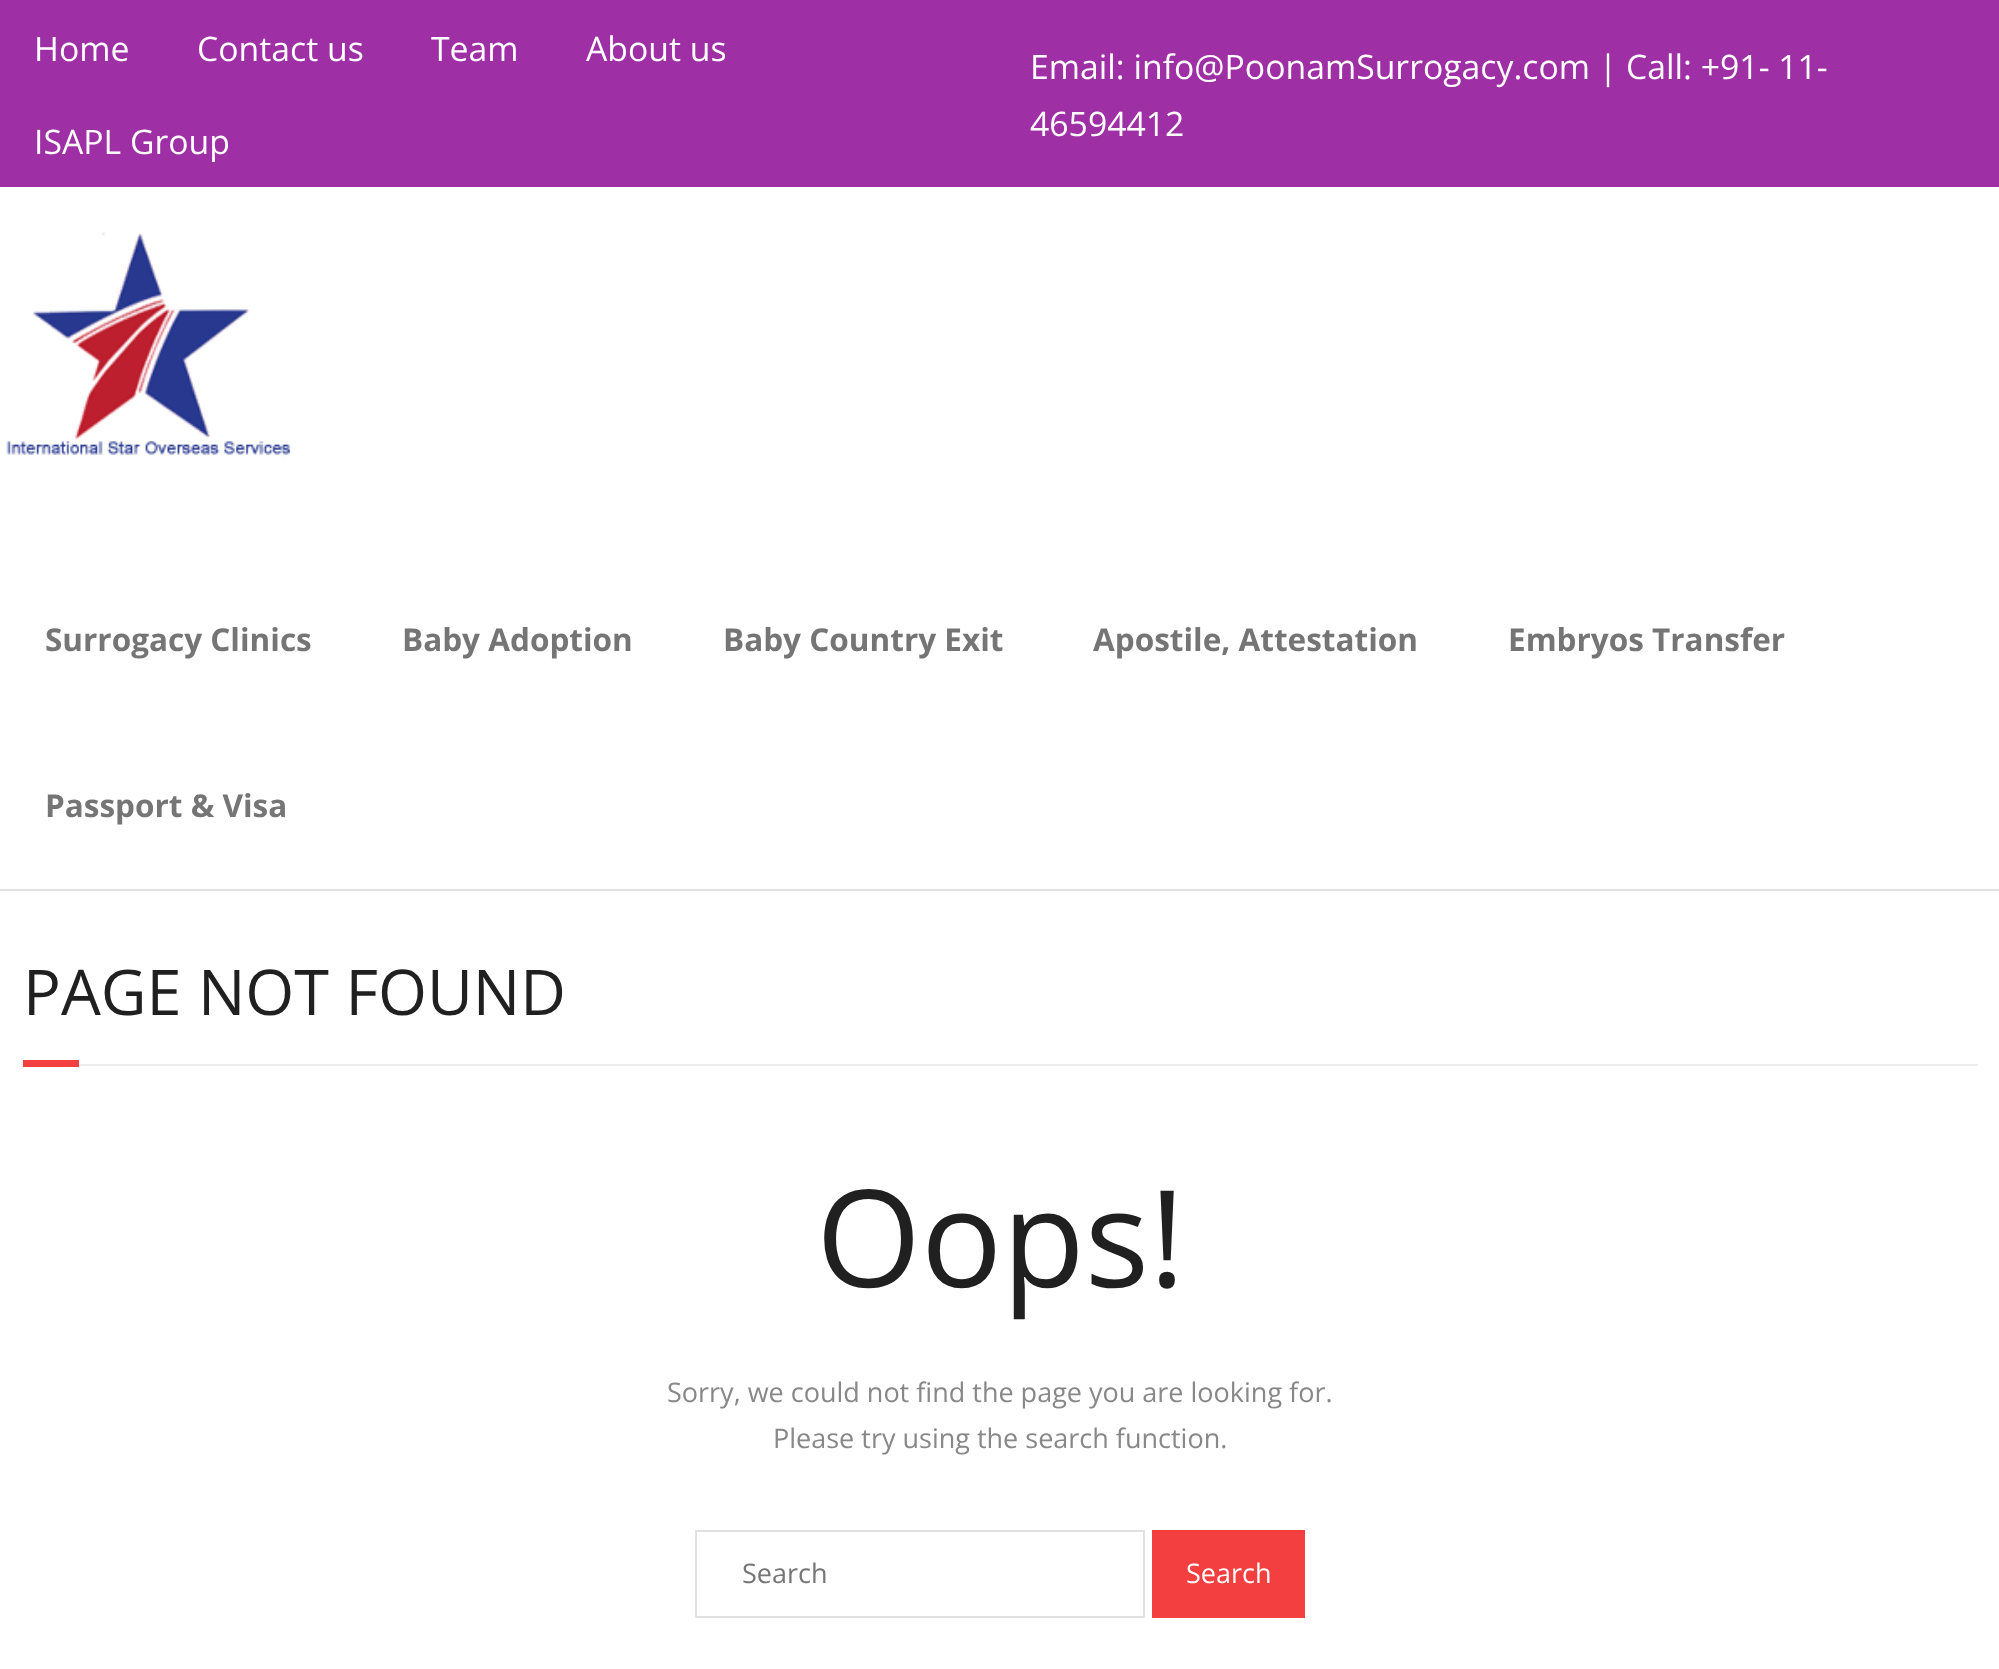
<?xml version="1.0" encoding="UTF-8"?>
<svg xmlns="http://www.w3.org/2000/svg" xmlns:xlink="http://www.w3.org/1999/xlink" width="1999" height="1669">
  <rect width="100%" height="100%" fill="#ffffff" />
  <rect width="1999" height="187" fill="#9e2fa5" />
  <rect y="889" width="1999" height="2" fill="#e0e0e0" />
  <image x="6" y="232" width="285" height="227" xlink:href="image1.png" />
  <rect x="23" y="1060" width="56" height="7" fill="#f33f3f" />
  <rect x="79" y="1064" width="1899" height="2" fill="#eeeeee" />
  <rect x="696" y="1531" width="448" height="86" fill="none" stroke="#e0e0e0" stroke-width="2" />
  <rect x="1152" y="1530" width="153" height="88" fill="#f33f3f" />
  <text x="34" y="61" style="font-family: Open Sans; font-size: 33.75px; fill: #ffffff">Home</text>
  <text x="197" y="61" style="font-family: Open Sans; font-size: 33.75px; fill: #ffffff">Contact us</text>
  <text x="431" y="61" style="font-family: Open Sans; font-size: 33.75px; fill: #ffffff">Team</text>
  <text x="586" y="61" style="font-family: Open Sans; font-size: 33.75px; fill: #ffffff">About us</text>
  <text x="34" y="154" style="font-family: Open Sans; font-size: 33.75px; fill: #ffffff">ISAPL Group</text>
  <text x="1030" y="79" style="font-family: Open Sans; font-size: 33.75px; fill: #ffffff">Email: info@PoonamSurrogacy.com | Call: +91- 11-</text>
  <text x="1030" y="136" style="font-family: Open Sans; font-size: 33.75px; fill: #ffffff">46594412</text>
  <text x="45" y="651" style="font-family: Open Sans; font-size: 31.5px; font-weight: bold; fill: #757575">Surrogacy Clinics</text>
  <text x="402" y="651" style="font-family: Open Sans; font-size: 31.5px; font-weight: bold; fill: #757575">Baby Adoption</text>
  <text x="723" y="651" style="font-family: Open Sans; font-size: 31.5px; font-weight: bold; fill: #757575">Baby Country Exit</text>
  <text x="1093" y="651" style="font-family: Open Sans; font-size: 31.5px; font-weight: bold; fill: #757575">Apostile, Attestation</text>
  <text x="1508" y="651" style="font-family: Open Sans; font-size: 31.5px; font-weight: bold; fill: #757575">Embryos Transfer</text>
  <text x="45" y="817" style="font-family: Open Sans; font-size: 31.5px; font-weight: bold; fill: #757575">Passport &amp; Visa</text>
  <text x="23" y="1015" style="font-family: Open Sans; font-size: 63px; fill: #202020">PAGE NOT FOUND</text>
  <text x="816" y="1287" style="font-family: Open Sans; font-size: 135px; fill: #202020">Oops!</text>
  <text x="667" y="1402" style="font-family: Open Sans; font-size: 27px; fill: #888888">Sorry, we could not find the page you are looking for.</text>
  <text x="773" y="1448" style="font-family: Open Sans; font-size: 27px; fill: #888888">Please try using the search function.</text>
  <text x="742" y="1583" style="font-family: Open Sans; font-size: 27px; fill: #757575">Search</text>
  <text x="1186" y="1583" style="font-family: Open Sans; font-size: 27px; fill: #ffffff">Search</text>
</svg>
